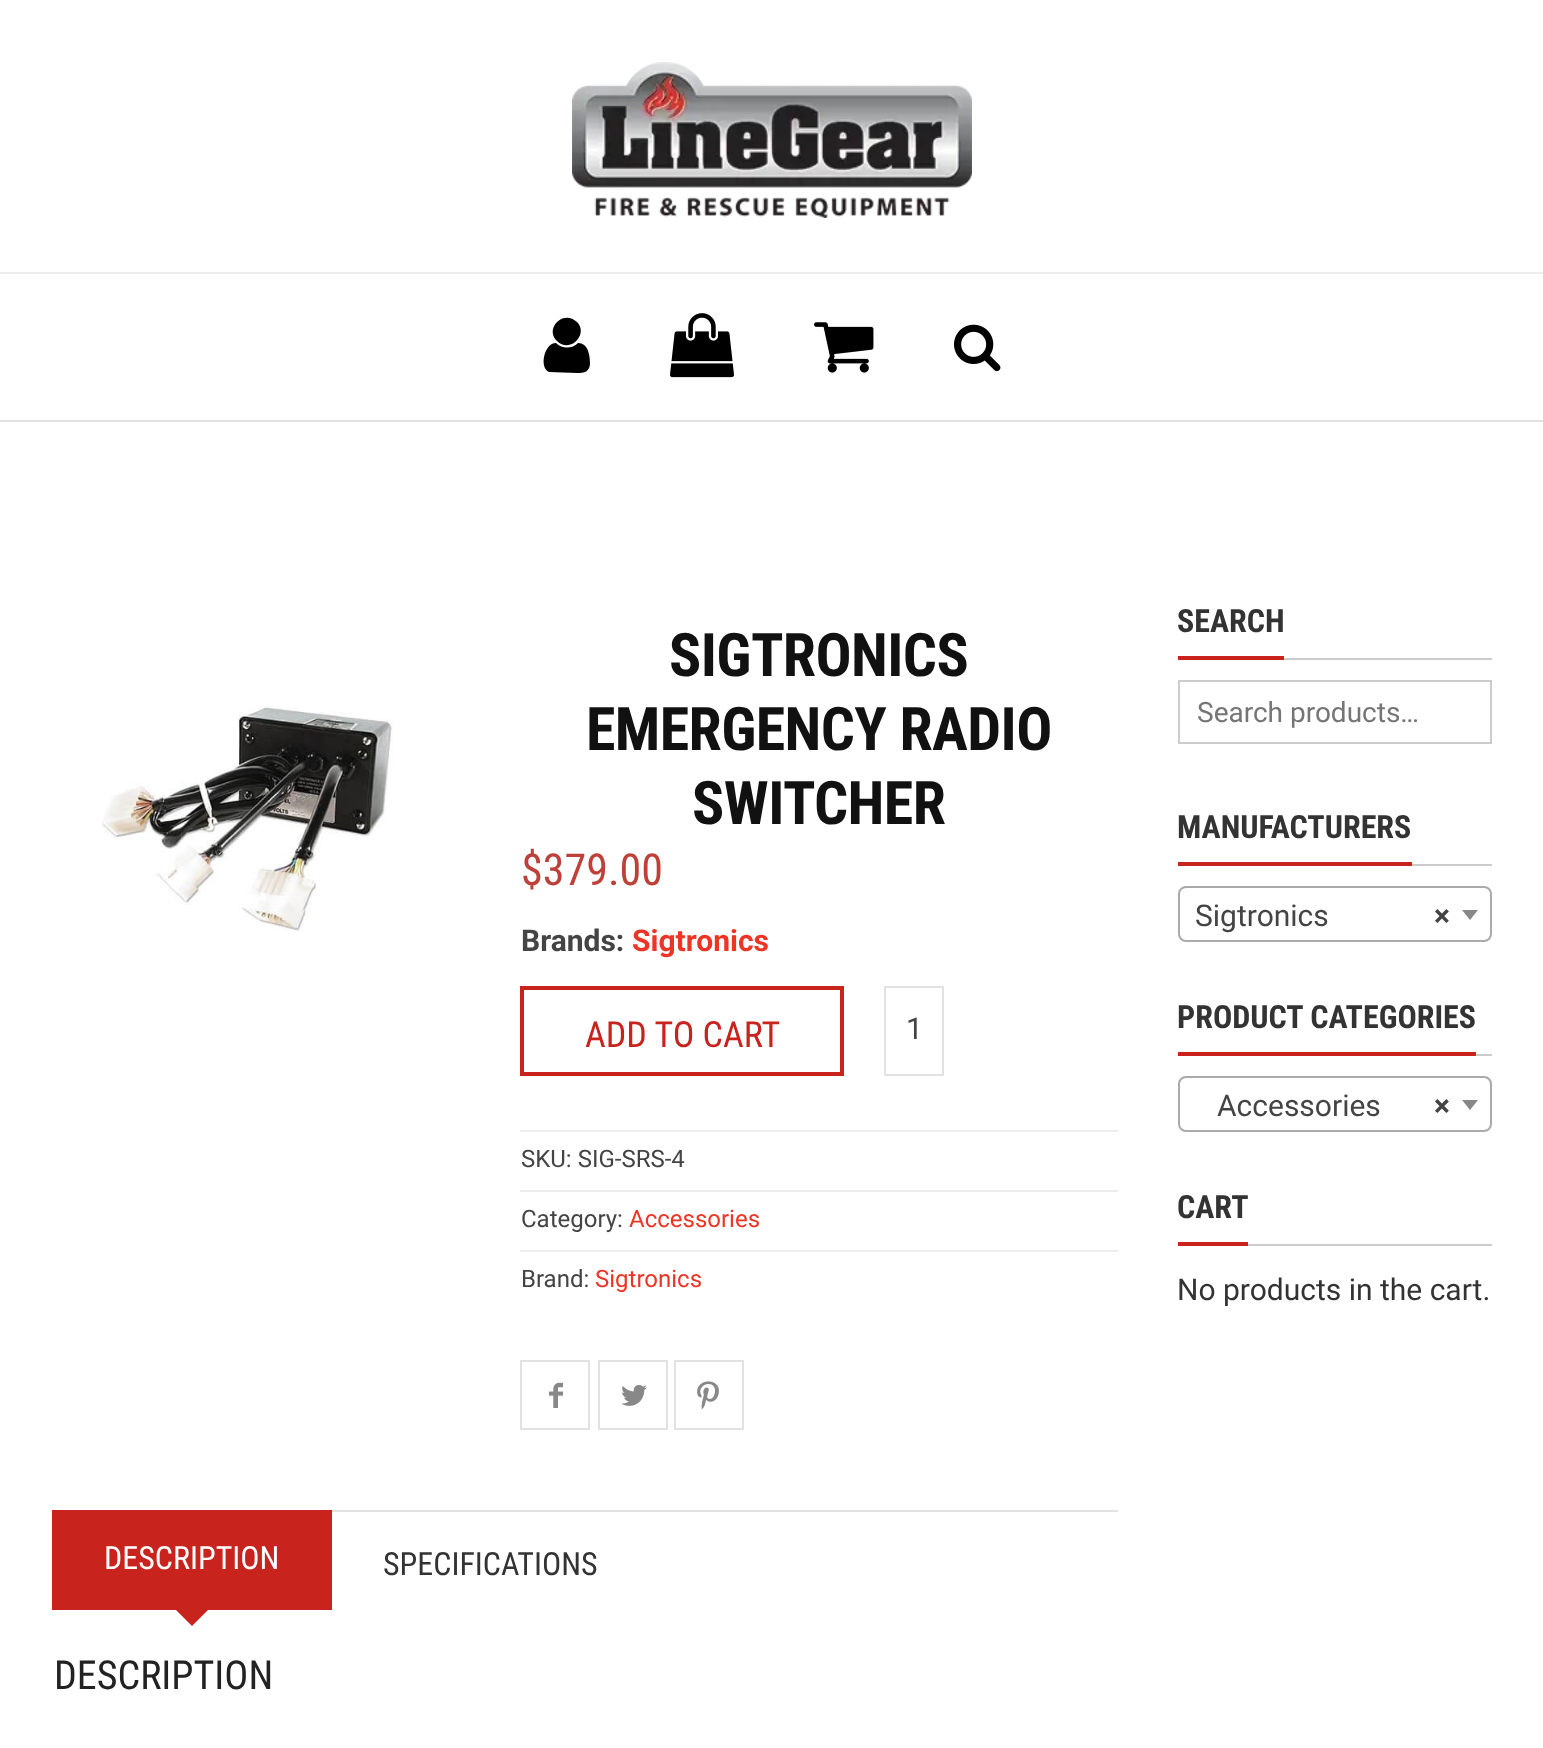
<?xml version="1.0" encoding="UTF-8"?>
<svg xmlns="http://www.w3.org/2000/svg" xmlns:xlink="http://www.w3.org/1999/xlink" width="1543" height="1748">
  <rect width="100%" height="100%" fill="#ffffff" />
  <rect y="272" width="1543" height="2" fill="#eeeeee" />
  <image x="572" y="62" width="400" height="156" xlink:href="image1.png" />
  <path d="M 590 363 c 0 9 -6 10 -13 10 l -28 -1 c -10 -4 -5 -29 7 -29 c 6 6 16 6 22 0 c 10 0 12 12 12 20 z m -13 -41 c 12 12 -7 32 -20 19 c -13 -13 7 -32 20 -19 z" fill="#000000" />
  <image x="670" y="313" width="64" height="65" xlink:href="image2.png" />
  <image x="814" y="322" width="60" height="51" xlink:href="image3.png" />
  <image x="954" y="324" width="47" height="48" xlink:href="image4.png" />
  <rect y="420" width="1543" height="2" fill="#e2e2e2" />
  <image x="101" y="706" width="293" height="225" xlink:href="image5.png" />
  <rect x="522" y="988" width="320" height="86" fill="none" stroke="#c9231e" stroke-width="4" />
  <rect x="885" y="987" width="58" height="88" fill="none" stroke="#e2e2e2" stroke-width="2" />
  <rect x="520" y="1130" width="598" height="2" fill="#eeeeee" />
  <rect x="520" y="1190" width="598" height="2" fill="#eeeeee" />
  <rect x="520" y="1250" width="598" height="2" fill="#eeeeee" />
  <rect x="521" y="1361" width="68" height="68" fill="none" stroke="#e2e2e2" stroke-width="2" />
  <image x="549" y="1382" width="14" height="26" xlink:href="image6.png" />
  <rect x="599" y="1361" width="68" height="68" fill="none" stroke="#e2e2e2" stroke-width="2" />
  <image x="621" y="1384" width="26" height="22" xlink:href="image7.png" />
  <rect x="675" y="1361" width="68" height="68" fill="none" stroke="#e2e2e2" stroke-width="2" />
  <image x="697" y="1381" width="22" height="29" xlink:href="image8.png" />
  <rect x="332" y="1510" width="786" height="2" fill="#e2e2e2" />
  <rect x="52" y="1510" width="280" height="100" fill="#c9231e" />
  <path d="M 176 1610 h 32 l -16 16 z" fill="#c9231e" />
  <rect x="1284" y="658" width="208" height="2" fill="#cccccc" />
  <rect x="1178" y="656" width="106" height="4" fill="#c9231e" />
  <rect x="1179" y="681" width="312" height="62" fill="none" stroke="#cccccc" stroke-width="2" />
  <rect x="1412" y="864" width="80" height="2" fill="#cccccc" />
  <rect x="1178" y="862" width="234" height="4" fill="#c9231e" />
  <rect x="1179" y="887" width="312" height="54" rx="7" fill="none" stroke="#aaaaaa" stroke-width="2" />
  <path d="M 1462 910 h 16 l -8 10 z" fill="#888888" />
  <rect x="1476" y="1054" width="16" height="2" fill="#cccccc" />
  <rect x="1178" y="1052" width="298" height="4" fill="#c9231e" />
  <rect x="1179" y="1077" width="312" height="54" rx="7" fill="none" stroke="#aaaaaa" stroke-width="2" />
  <path d="M 1462 1100 h 16 l -8 10 z" fill="#888888" />
  <rect x="1248" y="1244" width="244" height="2" fill="#cccccc" />
  <rect x="1178" y="1242" width="70" height="4" fill="#c9231e" />
  <text x="669" y="676" style="font-family: Roboto Condensed; font-size: 60px; font-weight: bold; letter-spacing: -0.6px; fill: #111111">SIGTRONICS</text>
  <text x="586" y="750" style="font-family: Roboto Condensed; font-size: 60px; font-weight: bold; letter-spacing: -0.6px; fill: #111111">EMERGENCY RADIO</text>
  <text x="692" y="824" style="font-family: Roboto Condensed; font-size: 60px; font-weight: bold; letter-spacing: -0.6px; fill: #111111">SWITCHER</text>
  <text x="521" y="885" style="font-family: Roboto Condensed; font-size: 44px; fill: #bd4138">$379.00</text>
  <text x="521" y="951" style="font-family: Roboto; font-size: 30px; font-weight: bold; fill: #444444">Brands:</text>
  <text x="632" y="951" style="font-family: Roboto; font-size: 30px; font-weight: bold; fill: #ee3424">Sigtronics</text>
  <text x="585" y="1047" style="font-family: Roboto Condensed; font-size: 36px; fill: #c9231e">ADD TO CART</text>
  <text x="906" y="1039" style="font-family: Roboto; font-size: 30px; fill: #444444">1</text>
  <text x="521" y="1167" style="font-family: Roboto; font-size: 24px; fill: #444444">SKU: SIG-SRS-4</text>
  <text x="521" y="1227" style="font-family: Roboto; font-size: 24px; fill: #444444">Category:</text>
  <text x="629" y="1227" style="font-family: Roboto; font-size: 24px; fill: #ee3424">Accessories</text>
  <text x="521" y="1287" style="font-family: Roboto; font-size: 24px; fill: #444444">Brand:</text>
  <text x="595" y="1287" style="font-family: Roboto; font-size: 24px; fill: #ee3424">Sigtronics</text>
  <text x="104" y="1569" style="font-family: Roboto Condensed; font-size: 32px; fill: #ffffff">DESCRIPTION</text>
  <text x="383" y="1575" style="font-family: Roboto Condensed; font-size: 32px; fill: #333333">SPECIFICATIONS</text>
  <text x="54" y="1689" style="font-family: Roboto Condensed; font-size: 40px; fill: #222222">DESCRIPTION</text>
  <text x="1177" y="632" style="font-family: Roboto Condensed; font-size: 32px; font-weight: bold; fill: #333333">SEARCH</text>
  <text x="1197" y="722" style="font-family: Roboto; font-size: 28px; fill: #757575">Search products…</text>
  <text x="1177" y="838" style="font-family: Roboto Condensed; font-size: 32px; font-weight: bold; fill: #333333">MANUFACTURERS</text>
  <text x="1195" y="926" style="font-family: Roboto; font-size: 30px; fill: #444444">Sigtronics</text>
  <text x="1434" y="926" style="font-family: Roboto; font-size: 30px; font-weight: bold; fill: #444444">×</text>
  <text x="1177" y="1028" style="font-family: Roboto Condensed; font-size: 32px; font-weight: bold; fill: #333333">PRODUCT CATEGORIES</text>
  <text x="1217" y="1116" style="font-family: Roboto; font-size: 30px; fill: #444444">Accessories</text>
  <text x="1434" y="1116" style="font-family: Roboto; font-size: 30px; font-weight: bold; fill: #444444">×</text>
  <text x="1177" y="1218" style="font-family: Roboto Condensed; font-size: 32px; font-weight: bold; fill: #333333">CART</text>
  <text x="1177" y="1300" style="font-family: Roboto; font-size: 30px; fill: #333333">No products in the cart.</text>
</svg>
